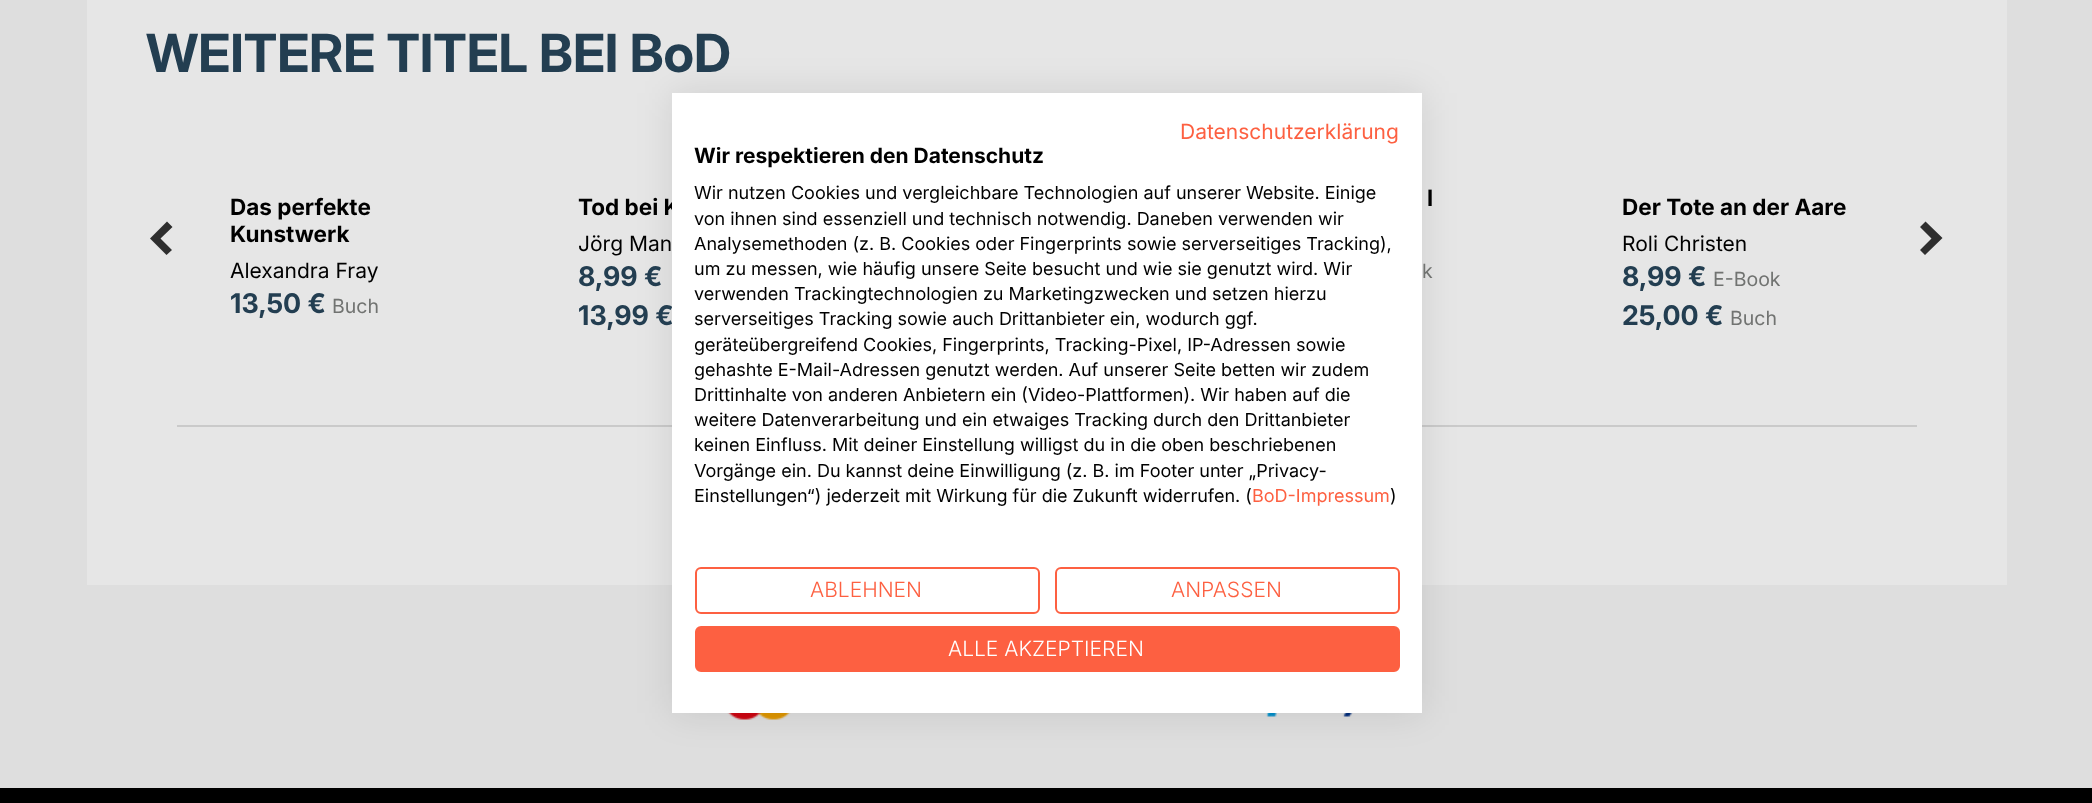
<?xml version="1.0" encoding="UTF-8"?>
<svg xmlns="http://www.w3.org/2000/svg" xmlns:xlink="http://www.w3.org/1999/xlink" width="2092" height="803">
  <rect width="100%" height="100%" fill="#dedede" />
  <rect x="87" width="1920" height="585" fill="#e6e6e6" />
  <path d="M 160.5 238.5 l 12 -11.5 l -5.5 -5.5 l -17 17 l 16.5 16.5 l 5.5 -5 z" fill="#2e2e2e" />
  <path d="M 1931.5 238.5 l -11.5 11.5 l 5 5 l 17.5 -17 l -17 -16.5 l -5.5 5.5 z" fill="#2e2e2e" />
  <rect x="177" y="425" width="1740" height="2" fill="#cacaca" />
  <image x="727" y="713" width="64" height="7" xlink:href="image1.png" />
  <image x="1266" y="713" width="87" height="4" xlink:href="image2.png" />
  <rect y="788" width="2092" height="15" fill="#000000" />
  <rect x="672" y="93" width="750" height="620" fill="#000000" fill-opacity="0.1" filter="blur(18px)" />
  <text x="146" y="72" style="font-family: Inter; font-size: 52.5px; font-weight: bold; fill: #233e51">WEITERE TITEL BEI BoD</text>
  <text x="230" y="215" style="font-family: 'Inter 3'; font-size: 22.5px; font-weight: bold; fill: #000000">Das perfekte</text>
  <text x="230" y="242" style="font-family: 'Inter 3'; font-size: 22.5px; font-weight: bold; fill: #000000">Kunstwerk</text>
  <text x="230" y="278" style="font-family: Inter; font-size: 21px; fill: #000000">Alexandra Fray</text>
  <text x="230" y="313" style="font-family: 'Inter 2'; font-size: 27px; font-weight: bold; fill: #233e51">13,50 €</text>
  <text x="332" y="313" style="font-family: Inter; font-size: 19.5px; fill: #717371">Buch</text>
  <text x="578" y="215" style="font-family: 'Inter 3'; font-size: 22.5px; font-weight: bold; fill: #000000">Tod bei K</text>
  <text x="578" y="251" style="font-family: Inter; font-size: 21px; fill: #000000">Jörg Man</text>
  <text x="578" y="286" style="font-family: 'Inter 2'; font-size: 27px; font-weight: bold; fill: #233e51">8,99 €</text>
  <text x="578" y="325" style="font-family: 'Inter 2'; font-size: 27px; font-weight: bold; fill: #233e51">13,99 €</text>
  <text x="1427" y="206" style="font-family: 'Inter 3'; font-size: 22.5px; font-weight: bold; fill: #000000">l</text>
  <text x="1422" y="278" style="font-family: Inter; font-size: 19.5px; fill: #717371">k</text>
  <text x="1622" y="215" style="font-family: 'Inter 3'; font-size: 22.5px; font-weight: bold; fill: #000000">Der Tote an der Aare</text>
  <text x="1622" y="251" style="font-family: Inter; font-size: 21px; fill: #000000">Roli Christen</text>
  <text x="1622" y="286" style="font-family: 'Inter 2'; font-size: 27px; font-weight: bold; fill: #233e51">8,99 €</text>
  <text x="1713" y="286" style="font-family: Inter; font-size: 19.5px; fill: #717371">E-Book</text>
  <text x="1622" y="325" style="font-family: 'Inter 2'; font-size: 27px; font-weight: bold; fill: #233e51">25,00 €</text>
  <text x="1730" y="325" style="font-family: Inter; font-size: 19.5px; fill: #717371">Buch</text>
  <rect x="672" y="93" width="750" height="620" fill="#ffffff" />
  <text x="1180" y="139" style="font-family: Inter; font-size: 21px; fill: #fd6041">Datenschutzerklärung</text>
  <text x="694" y="163" style="font-family: 'Inter 3'; font-size: 21px; font-weight: bold; fill: #000000">Wir respektieren den Datenschutz</text>
  <text x="694" y="199" style="font-family: Inter; font-size: 18px; fill: #000000">Wir nutzen Cookies und vergleichbare Technologien auf unserer Website. Einige</text>
  <text x="694" y="225" style="font-family: Inter; font-size: 18px; fill: #000000">von ihnen sind essenziell und technisch notwendig. Daneben verwenden wir</text>
  <text x="694" y="250" style="font-family: Inter; font-size: 18px; fill: #000000">Analysemethoden (z. B. Cookies oder Fingerprints sowie serverseitiges Tracking),</text>
  <text x="694" y="275" style="font-family: Inter; font-size: 18px; fill: #000000">um zu messen, wie häufig unsere Seite besucht und wie sie genutzt wird. Wir</text>
  <text x="694" y="300" style="font-family: Inter; font-size: 18px; fill: #000000">verwenden Trackingtechnologien zu Marketingzwecken und setzen hierzu</text>
  <text x="694" y="325" style="font-family: Inter; font-size: 18px; fill: #000000">serverseitiges Tracking sowie auch Drittanbieter ein, wodurch ggf.</text>
  <text x="694" y="351" style="font-family: Inter; font-size: 18px; fill: #000000">geräteübergreifend Cookies, Fingerprints, Tracking-Pixel, IP-Adressen sowie</text>
  <text x="694" y="376" style="font-family: Inter; font-size: 18px; fill: #000000">gehashte E-Mail-Adressen genutzt werden. Auf unserer Seite betten wir zudem</text>
  <text x="694" y="401" style="font-family: Inter; font-size: 18px; fill: #000000">Drittinhalte von anderen Anbietern ein (Video-Plattformen). Wir haben auf die</text>
  <text x="694" y="426" style="font-family: Inter; font-size: 18px; fill: #000000">weitere Datenverarbeitung und ein etwaiges Tracking durch den Drittanbieter</text>
  <text x="694" y="451" style="font-family: Inter; font-size: 18px; fill: #000000">keinen Einfluss. Mit deiner Einstellung willigst du in die oben beschriebenen</text>
  <text x="694" y="477" style="font-family: Inter; font-size: 18px; fill: #000000">Vorgänge ein. Du kannst deine Einwilligung (z. B. im Footer unter „Privacy-</text>
  <text x="694" y="502" style="font-family: Inter; font-size: 18px; fill: #000000">Einstellungen“) jederzeit mit Wirkung für die Zukunft widerrufen. (</text>
  <text x="1252" y="502" style="font-family: Inter; font-size: 18px; fill: #fd6041">BoD-Impressum</text>
  <text x="1390" y="502" style="font-family: Inter; font-size: 18px; fill: #000000">)</text>
  <rect x="696" y="568" width="343" height="45" rx="5" fill="none" stroke="#fd6041" stroke-width="2" />
  <text x="810" y="597" style="font-family: Inter; font-size: 21px; font-weight: 300; fill: #fd6041">ABLEHNEN</text>
  <rect x="1056" y="568" width="343" height="45" rx="5" fill="none" stroke="#fd6041" stroke-width="2" />
  <text x="1171" y="597" style="font-family: Inter; font-size: 21px; font-weight: 300; fill: #fd6041">ANPASSEN</text>
  <rect x="696" y="627" width="703" height="44" rx="5" fill="#fd6041" stroke="#fd6041" stroke-width="2" />
  <text x="948" y="656" style="font-family: Inter; font-size: 21px; font-weight: 300; fill: #ffffff">ALLE AKZEPTIEREN</text>
</svg>
